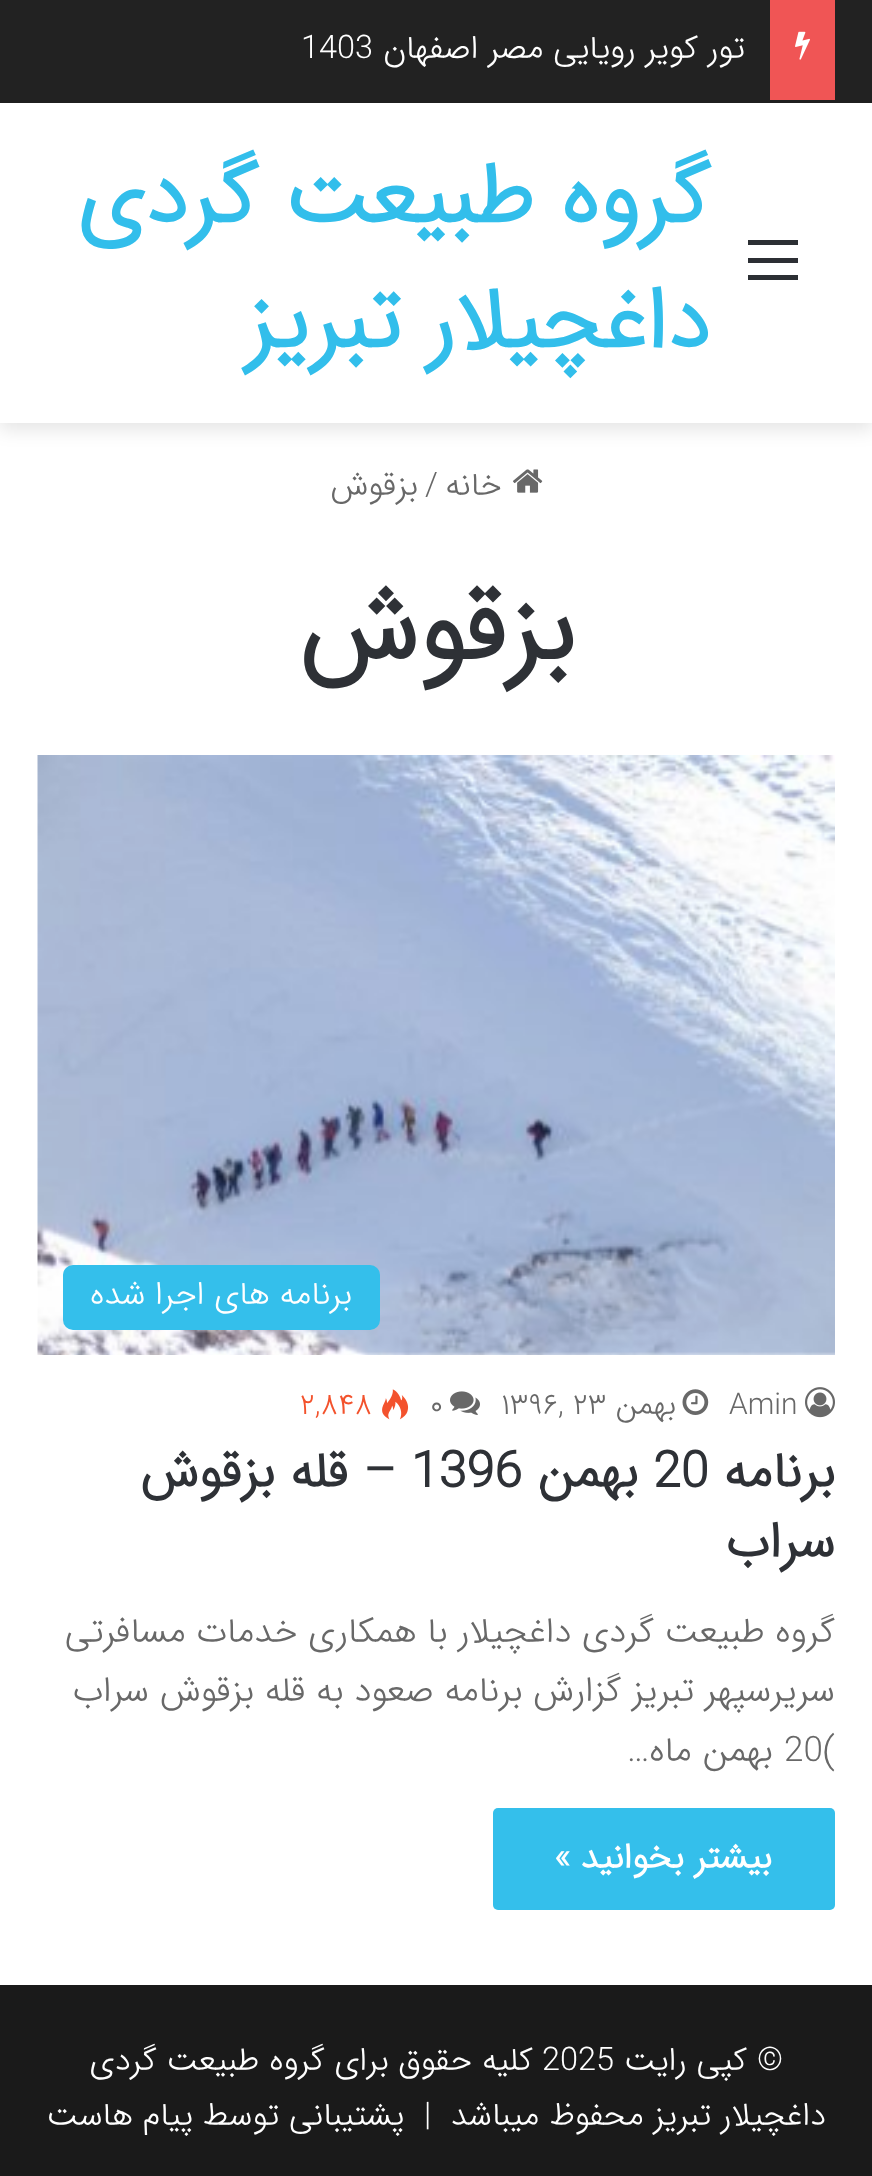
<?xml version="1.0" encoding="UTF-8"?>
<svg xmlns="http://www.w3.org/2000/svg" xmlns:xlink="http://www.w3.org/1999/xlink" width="872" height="2176">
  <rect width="100%" height="100%" fill="#ffffff" />
  <rect y="110" width="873" height="320" fill="#000000" fill-opacity="0.1" filter="blur(9px)" />
  <rect width="872" height="100" fill="#222222" />
  <rect y="100" width="872" height="3" fill="#1f1f1f" />
  <rect x="770" width="65" height="100" fill="#f05555" />
  <image x="795" y="31" width="15" height="29" xlink:href="image1.png" />
  <rect y="103" width="872" height="320" fill="#ffffff" />
  <rect x="748" y="258" width="50" height="5" fill="#2c2f34" />
  <rect x="748" y="240" width="50" height="5" fill="#2c2f34" />
  <rect x="748" y="275" width="50" height="5" fill="#2c2f34" />
  <image x="513" y="469" width="30" height="24" xlink:href="image2.png" />
  <image x="37" y="755" width="798" height="600" xlink:href="image3.png" />
  <rect x="63" y="1265" width="317" height="65" rx="10" fill="#34bfeb" />
  <image x="805" y="1387" width="30" height="31" xlink:href="image4.png" />
  <image x="682" y="1389" width="27" height="26" xlink:href="image5.png" />
  <image x="450" y="1391" width="30" height="24" xlink:href="image6.png" />
  <image x="382" y="1389" width="27" height="31" xlink:href="image7.png" />
  <rect x="493" y="1808" width="342" height="102" rx="5" fill="#34bfeb" />
  <rect y="1985" width="872" height="191" fill="#1a1a1a" />
  <text x="745" y="58" style="font-family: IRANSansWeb; font-size: 32.5px; font-weight: 300; direction: rtl; fill: #ffffff">تور کویر رویایی مصر اصفهان</text>
  <text x="301" y="58" style="font-family: IRANSansWeb; font-size: 32.5px; font-weight: 300; fill: #ffffff">1403</text>
  <text x="710" y="223" style="font-family: IRANSansWeb; font-size: 87.5px; font-weight: bold; direction: rtl; fill: #32beeb">گروه طبیعت گردی</text>
  <text x="710" y="348" style="font-family: IRANSansWeb; font-size: 87.5px; font-weight: bold; direction: rtl; fill: #32beeb">داغچیلار تبریز</text>
  <text x="502" y="495" style="font-family: IRANSansWeb; font-size: 32.5px; font-weight: 300; direction: rtl; fill: #686868">خانه</text>
  <text x="425" y="495" style="font-family: IRANSansWeb; font-size: 32.5px; font-weight: 300; fill: #686868">/</text>
  <text x="418" y="495" style="font-family: IRANSansWeb; font-size: 32.5px; font-weight: 300; direction: rtl; fill: #686868">بزقوش</text>
  <text x="575" y="660" style="font-family: IRANSansWeb; font-size: 102.5px; font-weight: bold; direction: rtl; fill: #2e3136">بزقوش</text>
  <text x="352" y="1304" style="font-family: IRANSansWeb; font-size: 32.5px; font-weight: 300; direction: rtl; fill: #ffffff">برنامه های اجرا شده</text>
  <text x="729" y="1414" style="font-family: IRANSansWeb; font-size: 30px; font-weight: 300; fill: #686868">Amin</text>
  <text x="676" y="1414" style="font-family: IRANSansWeb; font-size: 30px; font-weight: 300; direction: rtl; fill: #686868">بهمن</text>
  <text x="501" y="1414" style="font-family: IRANSansWeb; font-size: 30px; font-weight: 300; fill: #686868">۱۳۹۶, ۲۳</text>
  <text x="430" y="1414" style="font-family: IRANSansWeb; font-size: 30px; font-weight: 300; fill: #686868">۰</text>
  <text x="300" y="1414" style="font-family: IRANSansWeb; font-size: 30px; font-weight: 300; fill: #f3522c">۲,۸۴۸</text>
  <text x="835" y="1487" style="font-family: IRANSansWeb; font-size: 50px; font-weight: bold; direction: rtl; fill: #2e3136">برنامه</text>
  <text x="653" y="1487" style="font-family: IRANSansWeb; font-size: 50px; font-weight: bold; fill: #2e3136">20</text>
  <text x="638" y="1487" style="font-family: IRANSansWeb; font-size: 50px; font-weight: bold; direction: rtl; fill: #2e3136">بهمن</text>
  <text x="411" y="1487" style="font-family: IRANSansWeb; font-size: 50px; font-weight: bold; fill: #2e3136">1396</text>
  <text x="396" y="1487" style="font-family: IRANSansWeb; font-size: 50px; font-weight: bold; direction: rtl; fill: #2e3136">– قله بزقوش</text>
  <text x="835" y="1557" style="font-family: IRANSansWeb; font-size: 50px; font-weight: bold; direction: rtl; fill: #2e3136">سراب</text>
  <text x="835" y="1642" style="font-family: IRANSansWeb; font-size: 35px; font-weight: 300; direction: rtl; fill: #686868">گروه طبیعت گردی داغچیلار با همکاری خدمات مسافرتی</text>
  <text x="835" y="1701" style="font-family: IRANSansWeb; font-size: 35px; font-weight: 300; direction: rtl; fill: #686868">سریرسپهر تبریز گزارش برنامه صعود به قله بزقوش سراب</text>
  <text x="784" y="1761" style="font-family: IRANSansWeb; font-size: 35px; font-weight: 300; fill: #686868">20(</text>
  <text x="773" y="1761" style="font-family: IRANSansWeb; font-size: 35px; font-weight: 300; direction: rtl; fill: #686868">بهمن ماه…</text>
  <text x="772" y="1868" style="font-family: IRANSansWeb; font-size: 35px; font-weight: bold; direction: rtl; fill: #ffffff">بیشتر بخوانید »</text>
  <text x="783" y="2070" style="font-family: IRANSansWeb; font-size: 32.5px; font-weight: 300; direction: rtl; fill: #ffffff">© کپی رایت</text>
  <text x="542" y="2070" style="font-family: IRANSansWeb; font-size: 32.5px; font-weight: 300; fill: #ffffff">2025</text>
  <text x="533" y="2070" style="font-family: IRANSansWeb; font-size: 32.5px; font-weight: 300; direction: rtl; fill: #ffffff">کلیه حقوق برای گروه طبیعت گردی</text>
  <text x="826" y="2125" style="font-family: IRANSansWeb; font-size: 32.5px; font-weight: 300; direction: rtl; fill: #ffffff" xml:space="preserve">داغچیلار تبریز محفوظ میباشد  |  پشتیبانی توسط</text>
  <text x="193" y="2125" style="font-family: IRANSansWeb; font-size: 32.5px; font-weight: 300; direction: rtl; fill: #ffffff">پیام هاست</text>
</svg>
